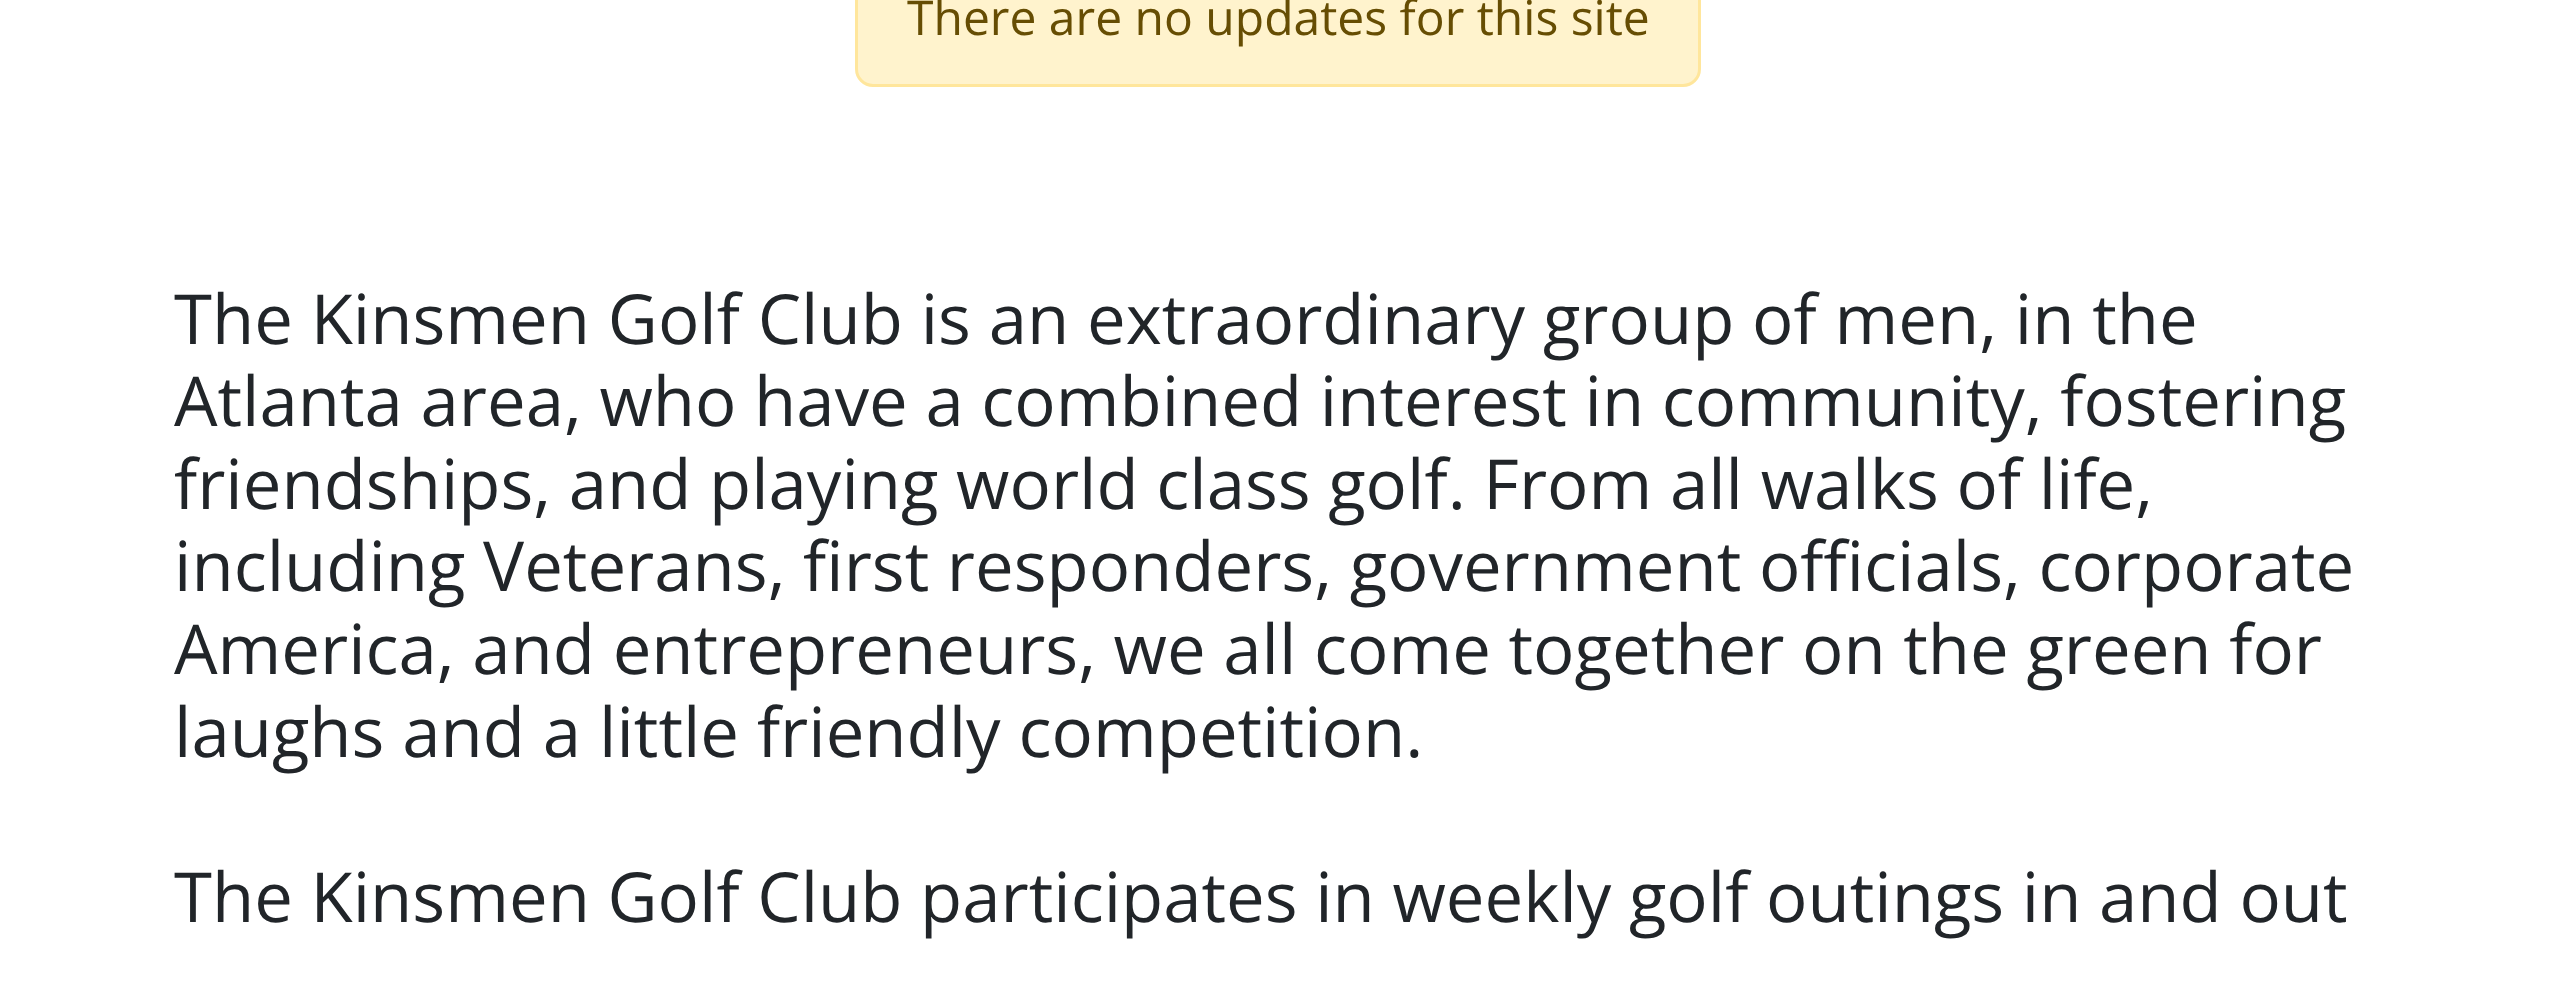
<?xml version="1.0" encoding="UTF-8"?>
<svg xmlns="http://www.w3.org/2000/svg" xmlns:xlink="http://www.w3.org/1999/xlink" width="2554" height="988">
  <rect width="100%" height="100%" fill="#ffffff" />
  <rect x="856.5" y="-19.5" width="843" height="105" rx="16.5" fill="#fff3cd" stroke="#ffe69c" stroke-width="3" />
  <text x="907" y="35" style="font-family: Open Sans; font-size: 48px; fill: #664d03">There are no updates for this site</text>
  <text x="174" y="344" word-spacing="-0.1" style="font-family: Open Sans; font-size: 68.9px; fill: #212529">The Kinsmen Golf Club is an extraordinary group of men, in the</text>
  <text x="174" y="426" word-spacing="-0.25" style="font-family: Open Sans; font-size: 68.9px; fill: #212529">Atlanta area, who have a combined interest in community, fostering</text>
  <text x="174" y="509" word-spacing="-0.25" style="font-family: Open Sans; font-size: 68.9px; fill: #212529">friendships, and playing world class golf. From all walks of life,</text>
  <text x="174" y="591" word-spacing="-0.25" style="font-family: Open Sans; font-size: 68.9px; fill: #212529">including Veterans, first responders, government officials, corporate</text>
  <text x="174" y="674" word-spacing="-0.25" style="font-family: Open Sans; font-size: 68.9px; fill: #212529">America, and entrepreneurs, we all come together on the green for</text>
  <text x="174" y="757" style="font-family: Open Sans; font-size: 68.9px; fill: #212529">laughs and a little friendly competition.</text>
  <text x="174" y="922" word-spacing="-0.25" style="font-family: Open Sans; font-size: 68.9px; fill: #212529">The Kinsmen Golf Club participates in weekly golf outings in and out</text>
</svg>
